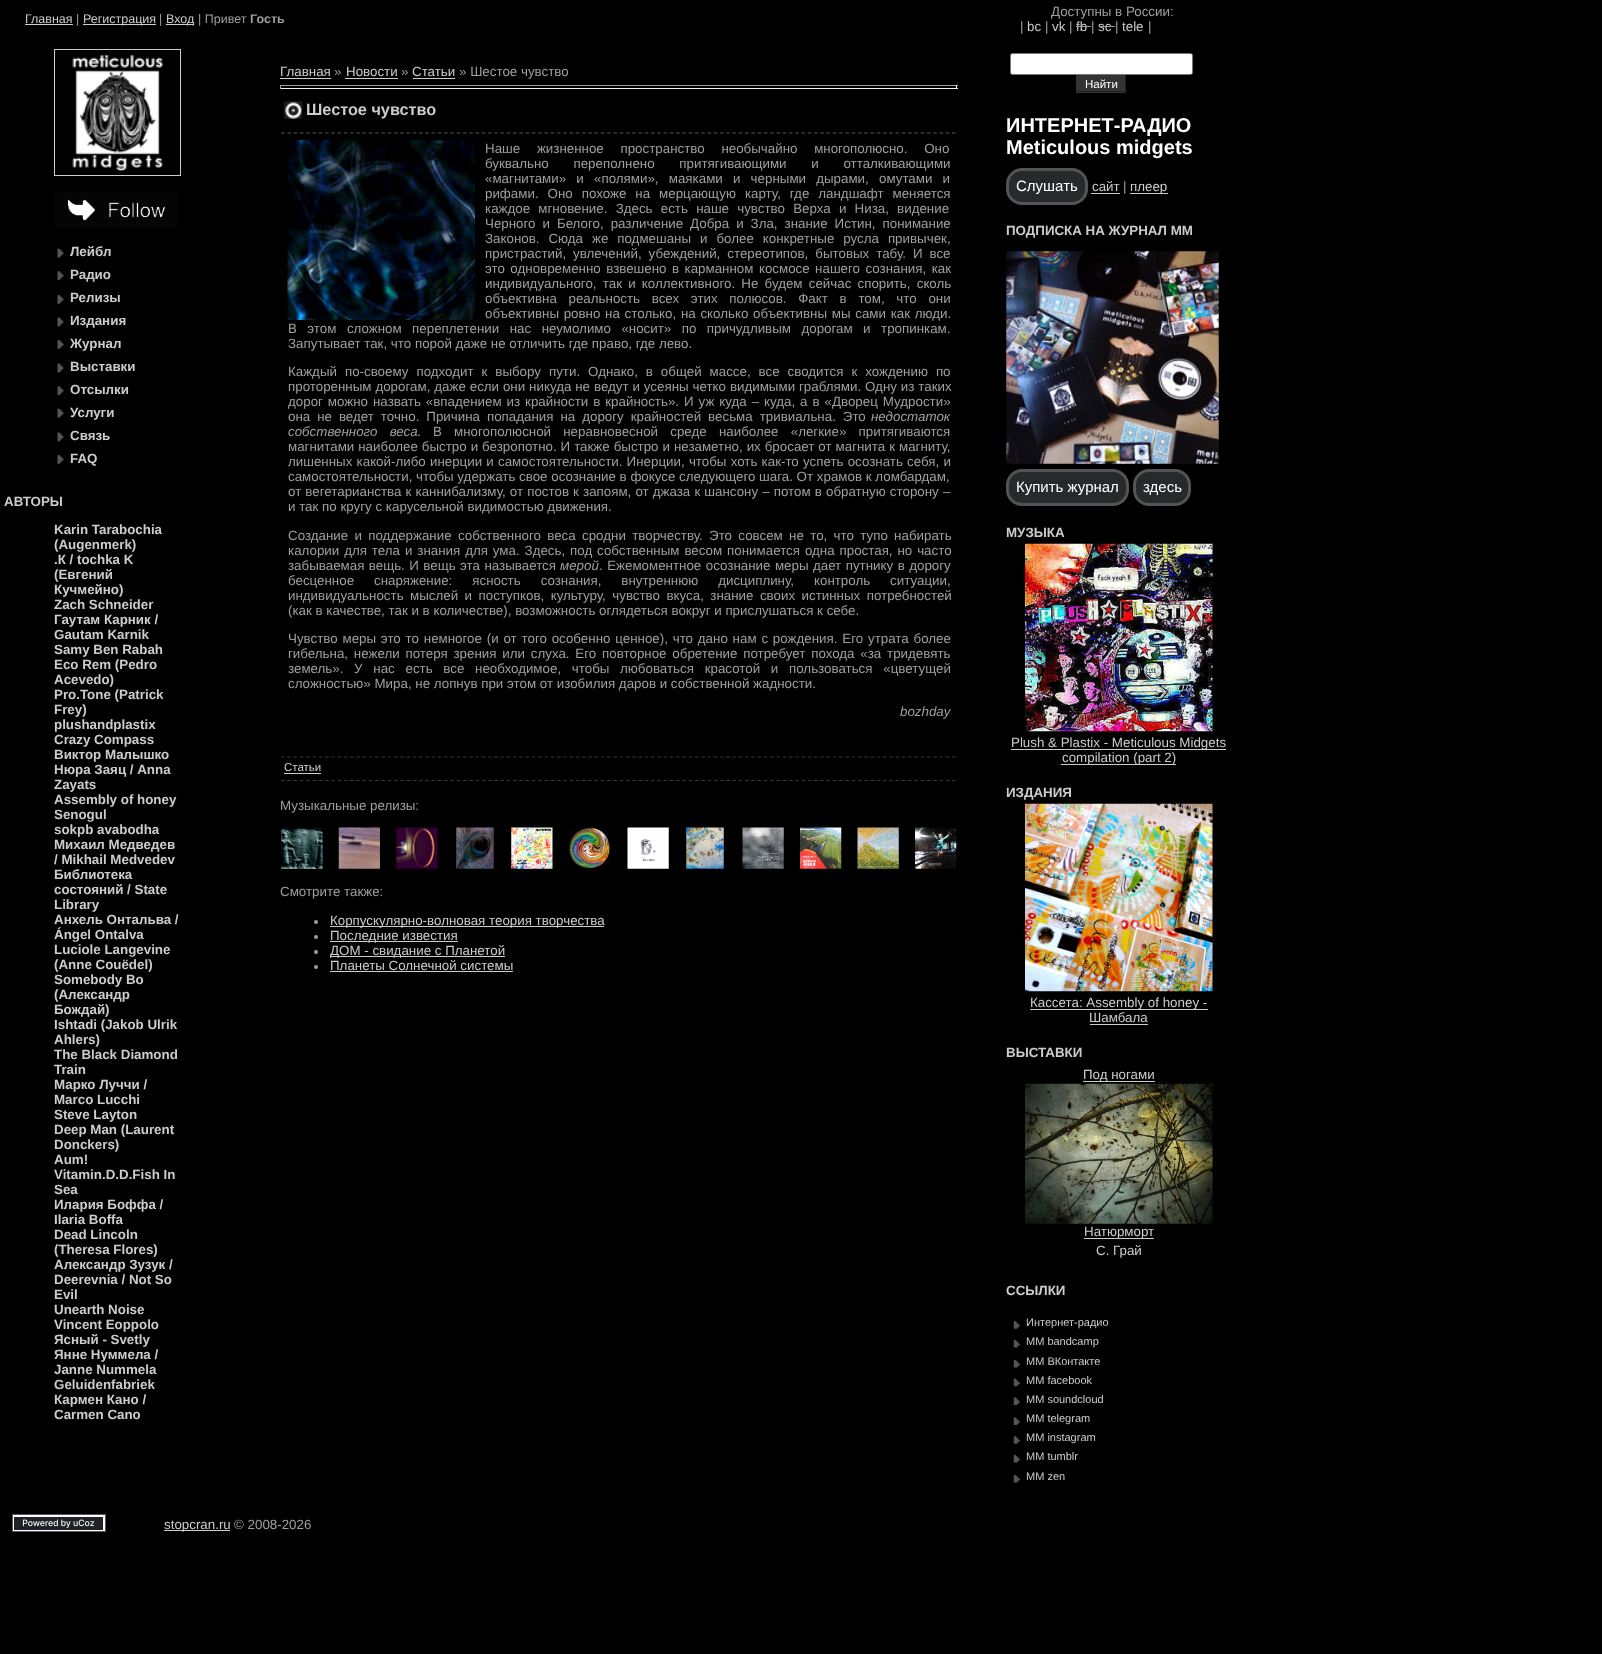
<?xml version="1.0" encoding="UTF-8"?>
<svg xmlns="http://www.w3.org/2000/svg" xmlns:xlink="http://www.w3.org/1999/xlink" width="1602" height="1654">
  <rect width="100%" height="100%" fill="#000000" />
  <rect x="25" y="24" width="48" height="1" fill="#cccccc" />
  <rect x="83" y="24" width="73" height="1" fill="#cccccc" />
  <rect x="166" y="24" width="28" height="1" fill="#cccccc" />
  <rect x="54.5" y="49.5" width="126" height="126" fill="none" stroke="#cccccc" />
  <image x="72" y="54" width="91" height="118" xlink:href="image1.png" />
  <image x="54" y="192" width="124" height="36" xlink:href="image2.png" />
  <image x="57" y="248" width="7" height="10" xlink:href="image3.png" />
  <image x="57" y="271" width="7" height="10" xlink:href="image4.png" />
  <image x="57" y="294" width="7" height="10" xlink:href="image5.png" />
  <image x="57" y="317" width="7" height="10" xlink:href="image6.png" />
  <image x="57" y="339" width="7" height="10" xlink:href="image7.png" />
  <image x="57" y="363" width="7" height="10" xlink:href="image3.png" />
  <image x="57" y="386" width="7" height="10" xlink:href="image4.png" />
  <image x="57" y="408" width="7" height="10" xlink:href="image3.png" />
  <image x="57" y="432" width="7" height="10" xlink:href="image6.png" />
  <image x="57" y="454" width="7" height="10" xlink:href="image7.png" />
  <rect x="280" y="78" width="51" height="1" fill="#cccccc" />
  <rect x="345" y="78" width="53" height="1" fill="#cccccc" />
  <rect x="413" y="78" width="42" height="1" fill="#cccccc" />
  <rect x="280" y="85" width="678" height="1" fill="#9f9f9f" />
  <rect x="956" y="85" width="1" height="4" fill="#eeeeee" />
  <rect x="280" y="88" width="678" height="1" fill="#eeeeee" />
  <rect x="280" y="85" width="1" height="4" fill="#9f9f9f" />
  <image x="283" y="101" width="20" height="18" xlink:href="image8.png" />
  <path d="M 281 133 h 675" fill="none" stroke="#555555" stroke-width="1.2" stroke-dasharray="3.75 2.52" />
  <image x="287" y="140" width="188" height="180" xlink:href="image9.png" />
  <path d="M 281 757 h 675" fill="none" stroke="#333333" stroke-width="1.2" stroke-dasharray="3.75 2.52" />
  <path d="M 281 780.5 h 675" fill="none" stroke="#333333" stroke-width="1.2" stroke-dasharray="3.75 2.52" />
  <rect x="284" y="773" width="37" height="1" fill="#cccccc" />
  <image x="281" y="827" width="42" height="42" xlink:href="image10.png" />
  <image x="338" y="827" width="42" height="42" xlink:href="image11.png" />
  <image x="396" y="827" width="42" height="42" xlink:href="image12.png" />
  <image x="456" y="827" width="38" height="42" xlink:href="image13.png" />
  <image x="511" y="827" width="42" height="42" xlink:href="image14.png" />
  <image x="569" y="827" width="41" height="42" xlink:href="image15.png" />
  <image x="627" y="827" width="42" height="42" xlink:href="image16.png" />
  <image x="686" y="827" width="38" height="42" xlink:href="image17.png" />
  <image x="742" y="827" width="42" height="42" xlink:href="image18.png" />
  <image x="800" y="827" width="42" height="42" xlink:href="image19.png" />
  <image x="857" y="827" width="42" height="42" xlink:href="image20.png" />
  <image x="915" y="827" width="42" height="42" xlink:href="image21.png" />
  <circle cx="316" cy="922" r="2" fill="#9f9f9f" />
  <rect x="330" y="926" width="274" height="1" fill="#cccccc" />
  <circle cx="316" cy="937" r="2" fill="#9f9f9f" />
  <rect x="330" y="941" width="128" height="1" fill="#cccccc" />
  <circle cx="316" cy="952" r="2" fill="#9f9f9f" />
  <rect x="330" y="956" width="175" height="1" fill="#cccccc" />
  <circle cx="316" cy="967" r="2" fill="#9f9f9f" />
  <rect x="330" y="971" width="183" height="1" fill="#cccccc" />
  <rect x="1010.5" y="53.5" width="182" height="21" rx="2" fill="#ffffff" stroke="#767676" />
  <rect x="1077" y="75" width="48" height="18" fill="#333333" />
  <rect x="1125" y="75" width="1" height="18" fill="#222222" />
  <rect x="1076" y="91" width="50" height="1" fill="#222222" />
  <rect x="1076" y="75" width="1" height="18" fill="#333333" />
  <rect x="1007.5" y="169.5" width="79" height="34" rx="14.5" fill="#272a2b" stroke="#545454" stroke-width="3" />
  <rect x="1091" y="193" width="29" height="1" fill="#cccccc" />
  <rect x="1130" y="193" width="38" height="1" fill="#cccccc" />
  <image x="1006" y="251" width="213" height="213" xlink:href="image22.png" />
  <rect x="1007.5" y="470.5" width="120" height="34" rx="14.5" fill="#272a2b" stroke="#545454" stroke-width="3" />
  <rect x="1134.5" y="470.5" width="55" height="34" rx="14.5" fill="#272a2b" stroke="#545454" stroke-width="3" />
  <image x="1025" y="543" width="188" height="189" xlink:href="image23.png" />
  <rect x="1011" y="749" width="215" height="1" fill="#cccccc" />
  <rect x="1061" y="764" width="115" height="1" fill="#cccccc" />
  <image x="1025" y="803" width="188" height="189" xlink:href="image24.png" />
  <rect x="1030" y="1009" width="178" height="1" fill="#cccccc" />
  <rect x="1090" y="1024" width="58" height="1" fill="#cccccc" />
  <rect x="1083" y="1081" width="72" height="1" fill="#cccccc" />
  <image x="1025" y="1083" width="188" height="141" xlink:href="image25.png" />
  <rect x="1084" y="1238" width="70" height="1" fill="#cccccc" />
  <image x="1013" y="1321" width="8" height="8" xlink:href="image26.png" />
  <image x="1013" y="1339" width="8" height="9" xlink:href="image27.png" />
  <image x="1013" y="1359" width="8" height="9" xlink:href="image27.png" />
  <image x="1013" y="1378" width="8" height="9" xlink:href="image28.png" />
  <image x="1013" y="1397" width="8" height="8" xlink:href="image29.png" />
  <image x="1013" y="1417" width="8" height="8" xlink:href="image29.png" />
  <image x="1013" y="1436" width="8" height="8" xlink:href="image26.png" />
  <image x="1013" y="1454" width="8" height="9" xlink:href="image27.png" />
  <image x="1013" y="1474" width="8" height="9" xlink:href="image27.png" />
  <image x="12" y="1514" width="94" height="18" xlink:href="image30.png" />
  <rect x="164" y="1530" width="66" height="1" fill="#cccccc" />
  <text x="25" y="23" style="font-family: Liberation Sans; font-size: 12.5px; fill: #cccccc">Главная</text>
  <text x="76" y="23" style="font-family: Liberation Sans; font-size: 12.5px; fill: #9f9f9f">|</text>
  <text x="83" y="23" style="font-family: Liberation Sans; font-size: 12.5px; fill: #cccccc">Регистрация</text>
  <text x="159" y="23" style="font-family: Liberation Sans; font-size: 12.5px; fill: #9f9f9f">|</text>
  <text x="166" y="23" style="font-family: Liberation Sans; font-size: 12.5px; fill: #cccccc">Вход</text>
  <text x="198" y="23" style="font-family: Liberation Sans; font-size: 12.5px; fill: #9f9f9f">| Привет</text>
  <text x="250" y="23" style="font-family: Liberation Sans; font-size: 12.5px; font-weight: bold; fill: #9f9f9f">Гость</text>
  <text x="1051" y="16" style="font-family: Liberation Sans; font-size: 13.35px; fill: #9f9f9f">Доступны в России:</text>
  <text x="1020" y="31" style="font-family: Liberation Sans; font-size: 13.35px; fill: #9f9f9f">|</text>
  <text x="1027" y="31" style="font-family: Liberation Sans; font-size: 13.35px; fill: #cccccc">bc</text>
  <text x="1045" y="31" style="font-family: Liberation Sans; font-size: 13.35px; fill: #9f9f9f">|</text>
  <text x="1052" y="31" style="font-family: Liberation Sans; font-size: 13.35px; fill: #cccccc">vk</text>
  <text x="1069" y="31" style="font-family: Liberation Sans; font-size: 13.35px; fill: #9f9f9f">|</text>
  <text x="1076" y="31" style="font-family: Liberation Sans; font-size: 13.35px; fill: #cccccc">fb</text>
  <rect x="1076" y="26" width="15" height="1" fill="#9f9f9f" />
  <text x="1091" y="31" style="font-family: Liberation Sans; font-size: 13.35px; fill: #9f9f9f">|</text>
  <text x="1098" y="31" style="font-family: Liberation Sans; font-size: 13.35px; fill: #cccccc">sc</text>
  <rect x="1099" y="26" width="16" height="1" fill="#9f9f9f" />
  <text x="1115" y="31" style="font-family: Liberation Sans; font-size: 13.35px; fill: #9f9f9f">|</text>
  <text x="1122" y="31" style="font-family: Liberation Sans; font-size: 13.35px; fill: #cccccc">tele</text>
  <text x="1148" y="31" style="font-family: Liberation Sans; font-size: 13.35px; fill: #9f9f9f">|</text>
  <text x="70" y="256" style="font-family: Liberation Sans; font-size: 13.35px; font-weight: bold; fill: #cccccc">Лейбл</text>
  <text x="70" y="279" style="font-family: Liberation Sans; font-size: 13.35px; font-weight: bold; fill: #cccccc">Радио</text>
  <text x="70" y="302" style="font-family: Liberation Sans; font-size: 13.35px; font-weight: bold; fill: #cccccc">Релизы</text>
  <text x="70" y="325" style="font-family: Liberation Sans; font-size: 13.35px; font-weight: bold; fill: #cccccc">Издания</text>
  <text x="70" y="348" style="font-family: Liberation Sans; font-size: 13.35px; font-weight: bold; fill: #cccccc">Журнал</text>
  <text x="70" y="371" style="font-family: Liberation Sans; font-size: 13.35px; font-weight: bold; fill: #cccccc">Выставки</text>
  <text x="70" y="394" style="font-family: Liberation Sans; font-size: 13.35px; font-weight: bold; fill: #cccccc">Отсылки</text>
  <text x="70" y="417" style="font-family: Liberation Sans; font-size: 13.35px; font-weight: bold; fill: #cccccc">Услуги</text>
  <text x="70" y="440" style="font-family: Liberation Sans; font-size: 13.35px; font-weight: bold; fill: #cccccc">Связь</text>
  <text x="70" y="463" style="font-family: Liberation Sans; font-size: 13.35px; font-weight: bold; fill: #cccccc">FAQ</text>
  <text x="4" y="506" style="font-family: Liberation Sans; font-size: 13.35px; font-weight: bold; fill: #cccccc">АВТОРЫ</text>
  <text x="54" y="534" style="font-family: Liberation Sans; font-size: 13.35px; font-weight: bold; fill: #cccccc">Karin Tarabochia</text>
  <text x="54" y="549" style="font-family: Liberation Sans; font-size: 13.35px; font-weight: bold; fill: #cccccc">(Augenmerk)</text>
  <text x="54" y="564" style="font-family: Liberation Sans; font-size: 13.35px; font-weight: bold; fill: #cccccc">.К / tochka K</text>
  <text x="54" y="579" style="font-family: Liberation Sans; font-size: 13.35px; font-weight: bold; fill: #cccccc">(Евгений</text>
  <text x="54" y="594" style="font-family: Liberation Sans; font-size: 13.35px; font-weight: bold; fill: #cccccc">Кучмейно)</text>
  <text x="54" y="609" style="font-family: Liberation Sans; font-size: 13.35px; font-weight: bold; fill: #cccccc">Zach Schneider</text>
  <text x="54" y="624" style="font-family: Liberation Sans; font-size: 13.35px; font-weight: bold; fill: #cccccc">Гаутам Карник /</text>
  <text x="54" y="639" style="font-family: Liberation Sans; font-size: 13.35px; font-weight: bold; fill: #cccccc">Gautam Karnik</text>
  <text x="54" y="654" style="font-family: Liberation Sans; font-size: 13.35px; font-weight: bold; fill: #cccccc">Samy Ben Rabah</text>
  <text x="54" y="669" style="font-family: Liberation Sans; font-size: 13.35px; font-weight: bold; fill: #cccccc">Eco Rem (Pedro</text>
  <text x="54" y="684" style="font-family: Liberation Sans; font-size: 13.35px; font-weight: bold; fill: #cccccc">Acevedo)</text>
  <text x="54" y="699" style="font-family: Liberation Sans; font-size: 13.35px; font-weight: bold; fill: #cccccc">Pro.Tone (Patrick</text>
  <text x="54" y="714" style="font-family: Liberation Sans; font-size: 13.35px; font-weight: bold; fill: #cccccc">Frey)</text>
  <text x="54" y="729" style="font-family: Liberation Sans; font-size: 13.35px; font-weight: bold; fill: #cccccc">plushandplastix</text>
  <text x="54" y="744" style="font-family: Liberation Sans; font-size: 13.35px; font-weight: bold; fill: #cccccc">Crazy Compass</text>
  <text x="54" y="759" style="font-family: Liberation Sans; font-size: 13.35px; font-weight: bold; fill: #cccccc">Виктор Малышко</text>
  <text x="54" y="774" style="font-family: Liberation Sans; font-size: 13.35px; font-weight: bold; fill: #cccccc">Нюра Заяц / Anna</text>
  <text x="54" y="789" style="font-family: Liberation Sans; font-size: 13.35px; font-weight: bold; fill: #cccccc">Zayats</text>
  <text x="54" y="804" style="font-family: Liberation Sans; font-size: 13.35px; font-weight: bold; fill: #cccccc">Assembly of honey</text>
  <text x="54" y="819" style="font-family: Liberation Sans; font-size: 13.35px; font-weight: bold; fill: #cccccc">Senogul</text>
  <text x="54" y="834" style="font-family: Liberation Sans; font-size: 13.35px; font-weight: bold; fill: #cccccc">sokpb avabodha</text>
  <text x="54" y="849" style="font-family: Liberation Sans; font-size: 13.35px; font-weight: bold; fill: #cccccc">Михаил Медведев</text>
  <text x="54" y="864" style="font-family: Liberation Sans; font-size: 13.35px; font-weight: bold; fill: #cccccc">/ Mikhail Medvedev</text>
  <text x="54" y="879" style="font-family: Liberation Sans; font-size: 13.35px; font-weight: bold; fill: #cccccc">Библиотека</text>
  <text x="54" y="894" style="font-family: Liberation Sans; font-size: 13.35px; font-weight: bold; fill: #cccccc">состояний / State</text>
  <text x="54" y="909" style="font-family: Liberation Sans; font-size: 13.35px; font-weight: bold; fill: #cccccc">Library</text>
  <text x="54" y="924" style="font-family: Liberation Sans; font-size: 13.35px; font-weight: bold; fill: #cccccc">Анхель Онтальва /</text>
  <text x="54" y="939" style="font-family: Liberation Sans; font-size: 13.35px; font-weight: bold; fill: #cccccc">Ángel Ontalva</text>
  <text x="54" y="954" style="font-family: Liberation Sans; font-size: 13.35px; font-weight: bold; fill: #cccccc">Luciole Langevine</text>
  <text x="54" y="969" style="font-family: Liberation Sans; font-size: 13.35px; font-weight: bold; fill: #cccccc">(Anne Couëdel)</text>
  <text x="54" y="984" style="font-family: Liberation Sans; font-size: 13.35px; font-weight: bold; fill: #cccccc">Somebody Bo</text>
  <text x="54" y="999" style="font-family: Liberation Sans; font-size: 13.35px; font-weight: bold; fill: #cccccc">(Александр</text>
  <text x="54" y="1014" style="font-family: Liberation Sans; font-size: 13.35px; font-weight: bold; fill: #cccccc">Бождай)</text>
  <text x="54" y="1029" style="font-family: Liberation Sans; font-size: 13.35px; font-weight: bold; fill: #cccccc">Ishtadi (Jakob Ulrik</text>
  <text x="54" y="1044" style="font-family: Liberation Sans; font-size: 13.35px; font-weight: bold; fill: #cccccc">Ahlers)</text>
  <text x="54" y="1059" style="font-family: Liberation Sans; font-size: 13.35px; font-weight: bold; fill: #cccccc">The Black Diamond</text>
  <text x="54" y="1074" style="font-family: Liberation Sans; font-size: 13.35px; font-weight: bold; fill: #cccccc">Train</text>
  <text x="54" y="1089" style="font-family: Liberation Sans; font-size: 13.35px; font-weight: bold; fill: #cccccc">Марко Луччи /</text>
  <text x="54" y="1104" style="font-family: Liberation Sans; font-size: 13.35px; font-weight: bold; fill: #cccccc">Marco Lucchi</text>
  <text x="54" y="1119" style="font-family: Liberation Sans; font-size: 13.35px; font-weight: bold; fill: #cccccc">Steve Layton</text>
  <text x="54" y="1134" style="font-family: Liberation Sans; font-size: 13.35px; font-weight: bold; fill: #cccccc">Deep Man (Laurent</text>
  <text x="54" y="1149" style="font-family: Liberation Sans; font-size: 13.35px; font-weight: bold; fill: #cccccc">Donckers)</text>
  <text x="54" y="1164" style="font-family: Liberation Sans; font-size: 13.35px; font-weight: bold; fill: #cccccc">Aum!</text>
  <text x="54" y="1179" style="font-family: Liberation Sans; font-size: 13.35px; font-weight: bold; fill: #cccccc">Vitamin.D.D.Fish In</text>
  <text x="54" y="1194" style="font-family: Liberation Sans; font-size: 13.35px; font-weight: bold; fill: #cccccc">Sea</text>
  <text x="54" y="1209" style="font-family: Liberation Sans; font-size: 13.35px; font-weight: bold; fill: #cccccc">Илария Боффа /</text>
  <text x="54" y="1224" style="font-family: Liberation Sans; font-size: 13.35px; font-weight: bold; fill: #cccccc">Ilaria Boffa</text>
  <text x="54" y="1239" style="font-family: Liberation Sans; font-size: 13.35px; font-weight: bold; fill: #cccccc">Dead Lincoln</text>
  <text x="54" y="1254" style="font-family: Liberation Sans; font-size: 13.35px; font-weight: bold; fill: #cccccc">(Theresa Flores)</text>
  <text x="54" y="1269" style="font-family: Liberation Sans; font-size: 13.35px; font-weight: bold; fill: #cccccc">Александр Зузук /</text>
  <text x="54" y="1284" style="font-family: Liberation Sans; font-size: 13.35px; font-weight: bold; fill: #cccccc">Deerevnia / Not So</text>
  <text x="54" y="1299" style="font-family: Liberation Sans; font-size: 13.35px; font-weight: bold; fill: #cccccc">Evil</text>
  <text x="54" y="1314" style="font-family: Liberation Sans; font-size: 13.35px; font-weight: bold; fill: #cccccc">Unearth Noise</text>
  <text x="54" y="1329" style="font-family: Liberation Sans; font-size: 13.35px; font-weight: bold; fill: #cccccc">Vincent Eoppolo</text>
  <text x="54" y="1344" style="font-family: Liberation Sans; font-size: 13.35px; font-weight: bold; fill: #cccccc">Ясный - Svetly</text>
  <text x="54" y="1359" style="font-family: Liberation Sans; font-size: 13.35px; font-weight: bold; fill: #cccccc">Янне Нуммела /</text>
  <text x="54" y="1374" style="font-family: Liberation Sans; font-size: 13.35px; font-weight: bold; fill: #cccccc">Janne Nummela</text>
  <text x="54" y="1389" style="font-family: Liberation Sans; font-size: 13.35px; font-weight: bold; fill: #cccccc">Geluidenfabriek</text>
  <text x="54" y="1404" style="font-family: Liberation Sans; font-size: 13.35px; font-weight: bold; fill: #cccccc">Кармен Кано /</text>
  <text x="54" y="1419" style="font-family: Liberation Sans; font-size: 13.35px; font-weight: bold; fill: #cccccc">Carmen Cano</text>
  <text x="280" y="76" style="font-family: Liberation Sans; font-size: 13.35px; fill: #cccccc">Главная</text>
  <text x="334" y="76" style="font-family: Liberation Sans; font-size: 13.35px; fill: #9f9f9f">»</text>
  <text x="346" y="76" style="font-family: Liberation Sans; font-size: 13.35px; fill: #cccccc">Новости</text>
  <text x="401" y="76" style="font-family: Liberation Sans; font-size: 13.35px; fill: #9f9f9f">»</text>
  <text x="412" y="76" style="font-family: Liberation Sans; font-size: 13.35px; fill: #cccccc">Статьи</text>
  <text x="459" y="76" style="font-family: Liberation Sans; font-size: 13.35px; fill: #9f9f9f">» Шестое чувство</text>
  <text x="306" y="115" style="font-family: Liberation Sans; font-size: 16.25px; font-weight: bold; fill: #cccccc">Шестое чувство</text>
  <text x="485" y="153" word-spacing="13" style="font-family: Liberation Sans; font-size: 13.35px; fill: #9f9f9f">Наше жизненное пространство необычайно многополюсно. Оно</text>
  <text x="485" y="168" word-spacing="21" style="font-family: Liberation Sans; font-size: 13.35px; fill: #9f9f9f">буквально переполнено притягивающими и отталкивающими</text>
  <text x="485" y="183" word-spacing="6.5" style="font-family: Liberation Sans; font-size: 13.35px; fill: #9f9f9f">«магнитами» и «полями», маяками и черными дырами, омутами и</text>
  <text x="485" y="198" word-spacing="5.25" style="font-family: Liberation Sans; font-size: 13.35px; fill: #9f9f9f">рифами. Оно похоже на мерцающую карту, где ландшафт меняется</text>
  <text x="485" y="213" word-spacing="4.5" style="font-family: Liberation Sans; font-size: 13.35px; fill: #9f9f9f">каждое мгновение. Здесь есть наше чувство Верха и Низа, видение</text>
  <text x="485" y="228" word-spacing="3.25" style="font-family: Liberation Sans; font-size: 13.35px; fill: #9f9f9f">Черного и Белого, различение Добра и Зла, знание Истин, понимание</text>
  <text x="485" y="243" word-spacing="5.25" style="font-family: Liberation Sans; font-size: 13.35px; fill: #9f9f9f">Законов. Сюда же подмешаны и более конкретные русла привычек,</text>
  <text x="485" y="258" word-spacing="3.25" style="font-family: Liberation Sans; font-size: 13.35px; fill: #9f9f9f">пристрастий, увлечений, убеждений, стереотипов, бытовых табу. И все</text>
  <text x="485" y="273" word-spacing="1.75" style="font-family: Liberation Sans; font-size: 13.35px; fill: #9f9f9f">это одновременно взвешено в карманном космосе нашего сознания, как</text>
  <text x="485" y="288" word-spacing="2.5" style="font-family: Liberation Sans; font-size: 13.35px; fill: #9f9f9f">индивидуального, так и коллективного. Не будем сейчас спорить, сколь</text>
  <text x="485" y="303" word-spacing="8" style="font-family: Liberation Sans; font-size: 13.35px; fill: #9f9f9f">объективна реальность всех этих полюсов. Факт в том, что они</text>
  <text x="485" y="318" word-spacing="1" style="font-family: Liberation Sans; font-size: 13.35px; fill: #9f9f9f">объективны ровно на столько, на сколько объективны мы сами как люди.</text>
  <text x="288" y="333" word-spacing="6.75" style="font-family: Liberation Sans; font-size: 13.35px; fill: #9f9f9f">В этом сложном переплетении нас неумолимо «носит» по причудливым дорогам и тропинкам.</text>
  <text x="288" y="348" style="font-family: Liberation Sans; font-size: 13.35px; fill: #9f9f9f">Запутывает так, что порой даже не отличить где право, где лево.</text>
  <text x="288" y="376" word-spacing="4.25" style="font-family: Liberation Sans; font-size: 13.35px; fill: #9f9f9f">Каждый по-своему подходит к выбору пути. Однако, в общей массе, все сводится к хождению по</text>
  <text x="288" y="391" word-spacing="0.2" style="font-family: Liberation Sans; font-size: 13.35px; fill: #9f9f9f">проторенным дорогам, даже если они никуда не ведут и усеяны четко видимыми граблями. Одну из таких</text>
  <text x="288" y="406" word-spacing="1.25" style="font-family: Liberation Sans; font-size: 13.35px; fill: #9f9f9f">дорог можно назвать «впадением из крайности в крайность». И уж куда – куда, а в «Дворец Мудрости»</text>
  <text x="288" y="421" word-spacing="3.25" style="font-family: Liberation Sans; font-size: 13.35px; fill: #9f9f9f">она не ведет точно. Причина попадания на дорогу крайностей весьма тривиальна. Это</text>
  <text x="871" y="421" style="font-family: Liberation Sans; font-size: 13.35px; font-style: italic; fill: #9f9f9f">недостаток</text>
  <text x="288" y="436" word-spacing="8.5" style="font-family: Liberation Sans; font-size: 13.35px; font-style: italic; fill: #9f9f9f">собственного веса</text>
  <text x="417" y="436" word-spacing="8.5" style="font-family: Liberation Sans; font-size: 13.35px; fill: #9f9f9f">. В многополюсной неравновесной среде наиболее «легкие» притягиваются</text>
  <text x="288" y="451" word-spacing="0.25" style="font-family: Liberation Sans; font-size: 13.35px; fill: #9f9f9f">магнитами наиболее быстро и безропотно. И также быстро и незаметно, их бросает от магнита к магниту,</text>
  <text x="288" y="466" word-spacing="0.5" style="font-family: Liberation Sans; font-size: 13.35px; fill: #9f9f9f">лишенных какой-либо инерции и самостоятельности. Инерции, чтобы хоть как-то успеть осознать себя, и</text>
  <text x="288" y="481" style="font-family: Liberation Sans; font-size: 13.35px; fill: #9f9f9f">самостоятельности, чтобы удержать свое осознание в фокусе следующего шага. От храмов к ломбардам,</text>
  <text x="288" y="496" word-spacing="0.4" style="font-family: Liberation Sans; font-size: 13.35px; fill: #9f9f9f">от вегетарианства к каннибализму, от постов к запоям, от джаза к шансону – потом в обратную сторону –</text>
  <text x="288" y="511" style="font-family: Liberation Sans; font-size: 13.35px; fill: #9f9f9f">и так по кругу с карусельной видимостью движения.</text>
  <text x="288" y="540" word-spacing="2.6" style="font-family: Liberation Sans; font-size: 13.35px; fill: #9f9f9f">Создание и поддержание собственного веса сродни творчеству. Это совсем не то, что тупо набирать</text>
  <text x="288" y="555" word-spacing="1.2" style="font-family: Liberation Sans; font-size: 13.35px; fill: #9f9f9f">калории для тела и знания для ума. Здесь, под собственным весом понимается одна простая, но часто</text>
  <text x="288" y="570" word-spacing="0.75" style="font-family: Liberation Sans; font-size: 13.35px; fill: #9f9f9f">забываемая вещь. И вещь эта называется</text>
  <text x="560" y="570" style="font-family: Liberation Sans; font-size: 13.35px; font-style: italic; fill: #9f9f9f">мерой</text>
  <text x="599" y="570" word-spacing="0.75" style="font-family: Liberation Sans; font-size: 13.35px; fill: #9f9f9f">. Ежемоментное осознание меры дает путнику в дорогу</text>
  <text x="288" y="585" word-spacing="16.25" style="font-family: Liberation Sans; font-size: 13.35px; fill: #9f9f9f">бесценное снаряжение: ясность сознания, внутреннюю дисциплину, контроль ситуации,</text>
  <text x="288" y="600" word-spacing="2.75" style="font-family: Liberation Sans; font-size: 13.35px; fill: #9f9f9f">индивидуальность мыслей и поступков, культуру, чувство вкуса, знание своих истинных потребностей</text>
  <text x="288" y="615" style="font-family: Liberation Sans; font-size: 13.35px; fill: #9f9f9f">(как в качестве, так и в количестве), возможность оглядеться вокруг и прислушаться к себе.</text>
  <text x="288" y="643" word-spacing="1.1" style="font-family: Liberation Sans; font-size: 13.35px; fill: #9f9f9f">Чувство меры это то немногое (и от того особенно ценное), что дано нам с рождения. Его утрата более</text>
  <text x="288" y="658" word-spacing="2.1" style="font-family: Liberation Sans; font-size: 13.35px; fill: #9f9f9f">гибельна, нежели потеря зрения или слуха. Его повторное обретение потребует похода «за тридевять</text>
  <text x="288" y="673" word-spacing="7" style="font-family: Liberation Sans; font-size: 13.35px; fill: #9f9f9f">земель». У нас есть все необходимое, чтобы любоваться красотой и пользоваться «цветущей</text>
  <text x="288" y="688" style="font-family: Liberation Sans; font-size: 13.35px; fill: #9f9f9f">сложностью» Мира, не лопнув при этом от изобилия даров и собственной жадности.</text>
  <text x="900" y="716" style="font-family: Liberation Sans; font-size: 13.35px; font-style: italic; fill: #9f9f9f">bozhday</text>
  <text x="284" y="771" style="font-family: Liberation Sans; font-size: 11.5px; fill: #cccccc">Статьи</text>
  <text x="280" y="810" style="font-family: Liberation Sans; font-size: 13.35px; fill: #9f9f9f">Музыкальные релизы:</text>
  <text x="280" y="896" style="font-family: Liberation Sans; font-size: 13.35px; fill: #9f9f9f">Смотрите также:</text>
  <text x="330" y="925" style="font-family: Liberation Sans; font-size: 13.35px; fill: #cccccc">Корпускулярно-волновая теория творчества</text>
  <text x="330" y="940" style="font-family: Liberation Sans; font-size: 13.35px; fill: #cccccc">Последние известия</text>
  <text x="330" y="955" style="font-family: Liberation Sans; font-size: 13.35px; fill: #cccccc">ДОМ - свидание с Планетой</text>
  <text x="330" y="970" style="font-family: Liberation Sans; font-size: 13.35px; fill: #cccccc">Планеты Солнечной системы</text>
  <text x="1085" y="88" style="font-family: Liberation Sans; font-size: 11.5px; fill: #ffffff">Найти</text>
  <text x="1006" y="132" style="font-family: Liberation Sans; font-size: 20px; font-weight: bold; fill: #ffffff">ИНТЕРНЕТ-РАДИО</text>
  <text x="1006" y="154" style="font-family: Liberation Sans; font-size: 20px; font-weight: bold; fill: #ffffff">Meticulous midgets</text>
  <text x="1016" y="191" style="font-family: Liberation Sans; font-size: 15px; fill: #ffffff">Слушать</text>
  <text x="1092" y="191" style="font-family: Liberation Sans; font-size: 13.35px; fill: #cccccc">сайт</text>
  <text x="1123" y="191" style="font-family: Liberation Sans; font-size: 13.35px; fill: #9f9f9f">|</text>
  <text x="1130" y="191" style="font-family: Liberation Sans; font-size: 13.35px; fill: #cccccc">плеер</text>
  <text x="1006" y="235" style="font-family: Liberation Sans; font-size: 13.35px; font-weight: bold; fill: #cccccc">ПОДПИСКА НА ЖУРНАЛ ММ</text>
  <text x="1016" y="492" style="font-family: Liberation Sans; font-size: 15px; fill: #ffffff">Купить журнал</text>
  <text x="1143" y="492" style="font-family: Liberation Sans; font-size: 15px; fill: #ffffff">здесь</text>
  <text x="1006" y="537" style="font-family: Liberation Sans; font-size: 13.35px; font-weight: bold; fill: #cccccc">МУЗЫКА</text>
  <text x="1011" y="747" style="font-family: Liberation Sans; font-size: 13.35px; fill: #cccccc">Plush &amp; Plastix - Meticulous Midgets</text>
  <text x="1062" y="762" style="font-family: Liberation Sans; font-size: 13.35px; fill: #cccccc">compilation (part 2)</text>
  <text x="1006" y="797" style="font-family: Liberation Sans; font-size: 13.35px; font-weight: bold; fill: #cccccc">ИЗДАНИЯ</text>
  <text x="1030" y="1007" style="font-family: Liberation Sans; font-size: 13.35px; fill: #cccccc">Кассета: Assembly of honey -</text>
  <text x="1089" y="1022" style="font-family: Liberation Sans; font-size: 13.35px; fill: #cccccc">Шамбала</text>
  <text x="1006" y="1057" style="font-family: Liberation Sans; font-size: 13.35px; font-weight: bold; fill: #cccccc">ВЫСТАВКИ</text>
  <text x="1083" y="1079" style="font-family: Liberation Sans; font-size: 13.35px; fill: #cccccc">Под ногами</text>
  <text x="1084" y="1236" style="font-family: Liberation Sans; font-size: 13.35px; fill: #cccccc">Натюрморт</text>
  <text x="1096" y="1255" style="font-family: Liberation Sans; font-size: 13.35px; fill: #cccccc">С. Грай</text>
  <text x="1006" y="1295" style="font-family: Liberation Sans; font-size: 13.35px; font-weight: bold; fill: #cccccc">ССЫЛКИ</text>
  <text x="1026" y="1326" style="font-family: Liberation Sans; font-size: 11px; fill: #cccccc">Интернет-радио</text>
  <text x="1026" y="1345" style="font-family: Liberation Sans; font-size: 11px; fill: #cccccc">MM bandcamp</text>
  <text x="1026" y="1365" style="font-family: Liberation Sans; font-size: 11px; fill: #cccccc">MM ВКонтакте</text>
  <text x="1026" y="1384" style="font-family: Liberation Sans; font-size: 11px; fill: #cccccc">MM facebook</text>
  <text x="1026" y="1403" style="font-family: Liberation Sans; font-size: 11px; fill: #cccccc">MM soundcloud</text>
  <text x="1026" y="1422" style="font-family: Liberation Sans; font-size: 11px; fill: #cccccc">MM telegram</text>
  <text x="1026" y="1441" style="font-family: Liberation Sans; font-size: 11px; fill: #cccccc">MM instagram</text>
  <text x="1026" y="1460" style="font-family: Liberation Sans; font-size: 11px; fill: #cccccc">MM tumblr</text>
  <text x="1026" y="1480" style="font-family: Liberation Sans; font-size: 11px; fill: #cccccc">MM zen</text>
  <text x="164" y="1529" style="font-family: Liberation Sans; font-size: 13.35px; fill: #cccccc">stopcran.ru</text>
  <text x="234" y="1529" style="font-family: Liberation Sans; font-size: 13.35px; fill: #9f9f9f">© 2008-2026</text>
</svg>
